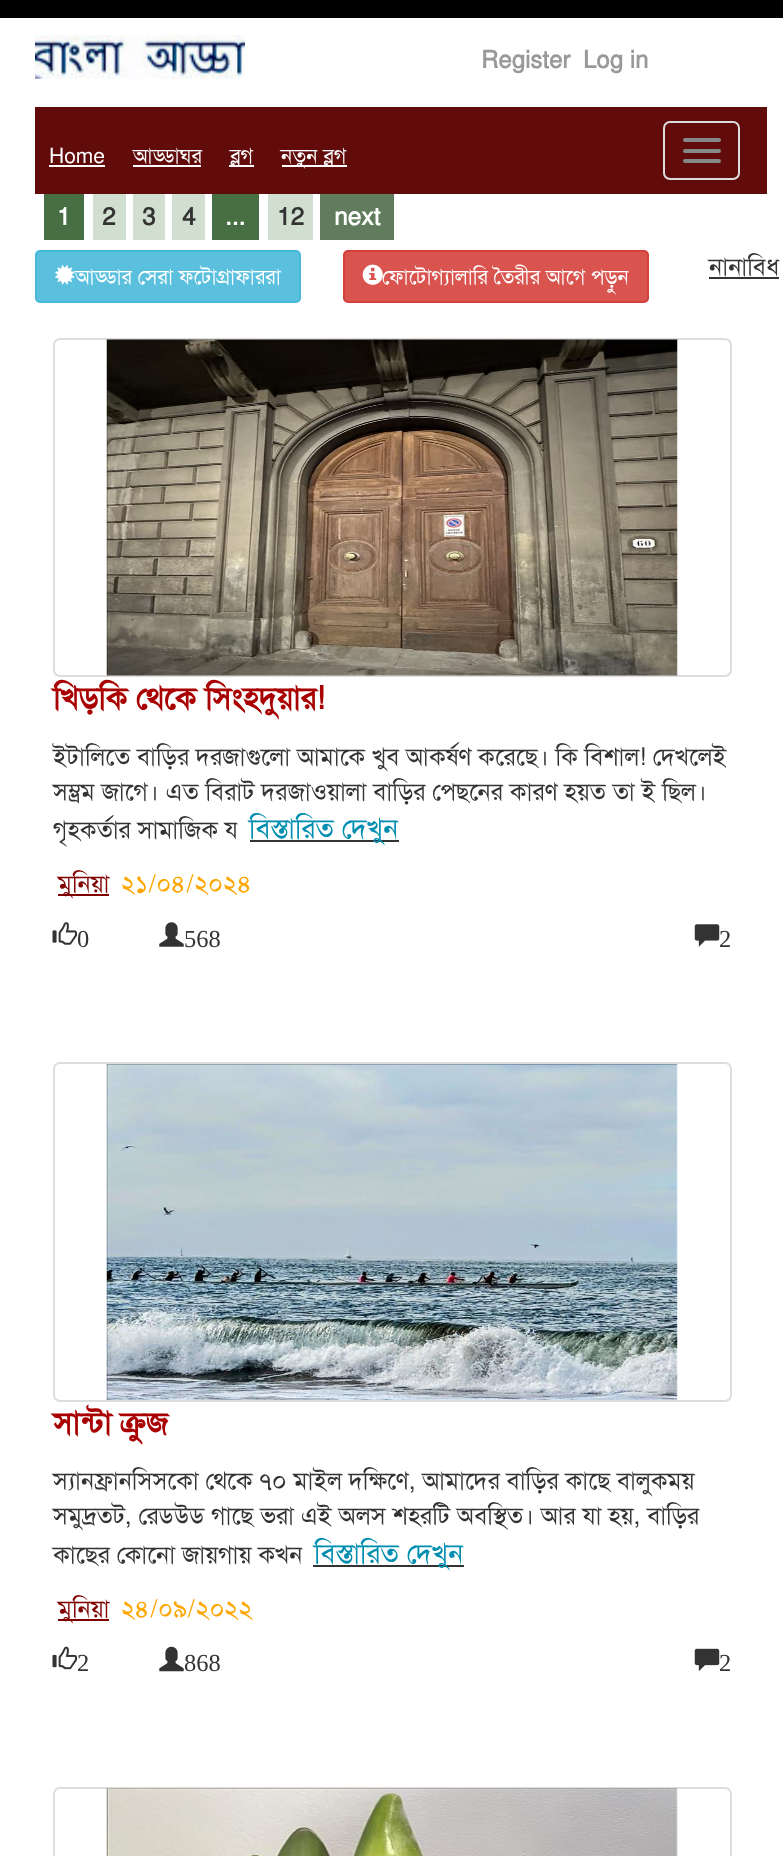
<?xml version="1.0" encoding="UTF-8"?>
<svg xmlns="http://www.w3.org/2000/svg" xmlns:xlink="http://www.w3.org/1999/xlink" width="783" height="1856">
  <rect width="100%" height="100%" fill="#ffffff" />
  <rect width="783" height="18" fill="#000000" />
  <image x="35" y="35" width="210" height="44" xlink:href="image1.png" />
  <rect x="35" y="107" width="732" height="87" fill="#610b0b" />
  <rect x="49" y="165" width="56" height="2" fill="#ffffff" />
  <rect x="133" y="165" width="68" height="2" fill="#ffffff" />
  <rect x="229" y="165" width="25" height="2" fill="#ffffff" />
  <rect x="282" y="165" width="65" height="2" fill="#ffffff" />
  <rect x="664" y="122" width="75" height="57" rx="6" fill="none" stroke="#dddddd" stroke-width="2" />
  <rect x="683" y="138" width="38" height="4" rx="2" fill="#888888" />
  <rect x="683" y="149" width="38" height="4" rx="2" fill="#888888" />
  <rect x="683" y="159" width="38" height="4" rx="2" fill="#888888" />
  <rect x="44" y="194" width="40" height="46" fill="#486f43" />
  <rect x="93" y="194" width="33" height="46" fill="#d0dfcf" />
  <rect x="133" y="194" width="32" height="46" fill="#d0dfcf" />
  <rect x="172" y="194" width="33" height="46" fill="#d0dfcf" />
  <rect x="212" y="194" width="47" height="46" fill="#486f43" />
  <rect x="268" y="194" width="45" height="46" fill="#d0dfcf" />
  <rect x="320" y="194" width="74" height="46" fill="#607c5d" />
  <rect x="36" y="251" width="264" height="51" rx="4" fill="#5bc0de" stroke="#46b8da" stroke-width="2" />
  <rect x="344" y="251" width="304" height="51" rx="4" fill="#d9534f" stroke="#d43f3a" stroke-width="2" />
  <rect x="709" y="277" width="70" height="2" fill="#333333" />
  <rect x="54" y="339" width="677" height="337" rx="6" fill="none" stroke="#dddddd" stroke-width="2" />
  <image x="106" y="339" width="572" height="337" xlink:href="image4.png" />
  <rect x="250" y="840" width="149" height="2" fill="#333333" />
  <rect x="58" y="894" width="51" height="2" fill="#800000" />
  <image x="52" y="922" width="25" height="23" xlink:href="image5.png" />
  <image x="159" y="922" width="25" height="25" xlink:href="image6.png" />
  <image x="694" y="924" width="26" height="23" xlink:href="image7.png" />
  <rect x="54" y="1063" width="677" height="338" rx="6" fill="none" stroke="#dddddd" stroke-width="2" />
  <image x="106" y="1064" width="572" height="336" xlink:href="image8.png" />
  <rect x="313" y="1565" width="151" height="2" fill="#333333" />
  <rect x="58" y="1619" width="51" height="2" fill="#800000" />
  <image x="52" y="1646" width="25" height="24" xlink:href="image9.png" />
  <image x="159" y="1646" width="25" height="26" xlink:href="image10.png" />
  <image x="694" y="1648" width="26" height="24" xlink:href="image11.png" />
  <rect x="54" y="1788" width="677" height="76" rx="6" fill="none" stroke="#dddddd" stroke-width="2" />
  <image x="106" y="1788" width="572" height="68" xlink:href="image12.png" />
  <text x="481" y="68" style="font-family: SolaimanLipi; font-size: 24px; font-weight: bold; fill: #999999">Register</text>
  <text x="583" y="68" style="font-family: SolaimanLipi; font-size: 24px; font-weight: bold; fill: #999999">Log in</text>
  <text x="49" y="163" style="font-family: SolaimanLipi; font-size: 21px; fill: #ffffff">Home</text>
  <text x="133" y="163" style="font-family: SolaimanLipi; font-size: 21px; fill: #ffffff">আড্ডাঘর</text>
  <text x="230" y="163" style="font-family: SolaimanLipi; font-size: 21px; fill: #ffffff">ব্লগ</text>
  <text x="281" y="163" style="font-family: SolaimanLipi; font-size: 21px; fill: #ffffff">নতুন ব্লগ</text>
  <text x="57" y="225" style="font-family: SolaimanLipi; font-size: 24.5px; font-weight: bold; fill: #ffffff">1</text>
  <text x="102" y="225" style="font-family: SolaimanLipi; font-size: 24.5px; font-weight: bold; fill: #333333">2</text>
  <text x="142" y="225" style="font-family: SolaimanLipi; font-size: 24.5px; font-weight: bold; fill: #333333">3</text>
  <text x="182" y="225" style="font-family: SolaimanLipi; font-size: 24.5px; font-weight: bold; fill: #333333">4</text>
  <text x="225" y="225" style="font-family: SolaimanLipi; font-size: 24.5px; font-weight: bold; fill: #ffffff">...</text>
  <text x="277" y="225" style="font-family: SolaimanLipi; font-size: 24.5px; font-weight: bold; fill: #333333">12</text>
  <text x="334" y="225" style="font-family: SolaimanLipi; font-size: 24.5px; font-weight: bold; fill: #ffffff">next</text>
  <text x="75" y="284" style="font-family: SolaimanLipi; font-size: 21px; fill: #ffffff">আড্ডার সেরা ফটোগ্রাফাররা</text>
  <image x="54" y="264" width="21" height="21" xlink:href="image2.png" />
  <text x="382" y="284" style="font-family: SolaimanLipi; font-size: 21px; fill: #ffffff">ফোটোগ্যালারি তৈরীর আগে পড়ুন</text>
  <image x="362" y="264" width="21" height="21" xlink:href="image3.png" />
  <text x="709" y="275" style="font-family: SolaimanLipi; font-size: 24.5px; fill: #333333">নানাবিধ</text>
  <text x="53" y="709" style="font-family: SolaimanLipi; font-size: 31.5px; font-weight: bold; fill: #a90101">খিড়কি থেকে সিংহদুয়ার!</text>
  <text x="53" y="765" style="font-family: SolaimanLipi; font-size: 24.5px; fill: #333333">ইটালিতে বাড়ির দরজাগুলো আমাকে খুব আকর্ষণ করেছে। কি বিশাল! দেখলেই</text>
  <text x="53" y="800" style="font-family: SolaimanLipi; font-size: 24.5px; fill: #333333">সম্ভ্রম জাগে। এত বিরাট দরজাওয়ালা বাড়ির পেছনের কারণ হয়ত তা ই ছিল।</text>
  <text x="53" y="838" style="font-family: SolaimanLipi; font-size: 24.5px; fill: #333333">গৃহকর্তার সামাজিক য</text>
  <text x="249" y="838" style="font-family: SolaimanLipi; font-size: 28px; fill: #008eb1">বিস্তারিত দেখুন</text>
  <text x="58" y="892" style="font-family: SolaimanLipi; font-size: 24.5px; fill: #800000">মুনিয়া</text>
  <text x="121" y="892" style="font-family: SolaimanLipi; font-size: 24.5px; fill: #ffa500">২১/০৪/২০২৪</text>
  <text x="77" y="947" style="font-family: Liberation Serif; font-size: 24.5px; fill: #333333">0</text>
  <text x="184" y="947" style="font-family: Liberation Serif; font-size: 24.5px; fill: #333333">568</text>
  <text x="719" y="947" style="font-family: Liberation Serif; font-size: 24.5px; fill: #333333">2</text>
  <text x="53" y="1434" style="font-family: SolaimanLipi; font-size: 31.5px; font-weight: bold; fill: #a90101">সান্টা ক্রুজ</text>
  <text x="53" y="1489" style="font-family: SolaimanLipi; font-size: 24.5px; fill: #333333">স্যানফ্রানসিসকো থেকে ৭০ মাইল দক্ষিণে, আমাদের বাড়ির কাছে বালুকময়</text>
  <text x="53" y="1524" style="font-family: SolaimanLipi; font-size: 24.5px; fill: #333333">সমুদ্রতট, রেডউড গাছে ভরা এই অলস শহরটি অবস্থিত। আর যা হয়, বাড়ির</text>
  <text x="53" y="1563" style="font-family: SolaimanLipi; font-size: 24.5px; fill: #333333">কাছের কোনো জায়গায় কখন</text>
  <text x="314" y="1563" style="font-family: SolaimanLipi; font-size: 28px; fill: #008eb1">বিস্তারিত দেখুন</text>
  <text x="58" y="1617" style="font-family: SolaimanLipi; font-size: 24.5px; fill: #800000">মুনিয়া</text>
  <text x="121" y="1617" style="font-family: SolaimanLipi; font-size: 24.5px; fill: #ffa500">২৪/০৯/২০২২</text>
  <text x="77" y="1671" style="font-family: Liberation Serif; font-size: 24.5px; fill: #333333">2</text>
  <text x="184" y="1671" style="font-family: Liberation Serif; font-size: 24.5px; fill: #333333">868</text>
  <text x="719" y="1671" style="font-family: Liberation Serif; font-size: 24.5px; fill: #333333">2</text>
</svg>
